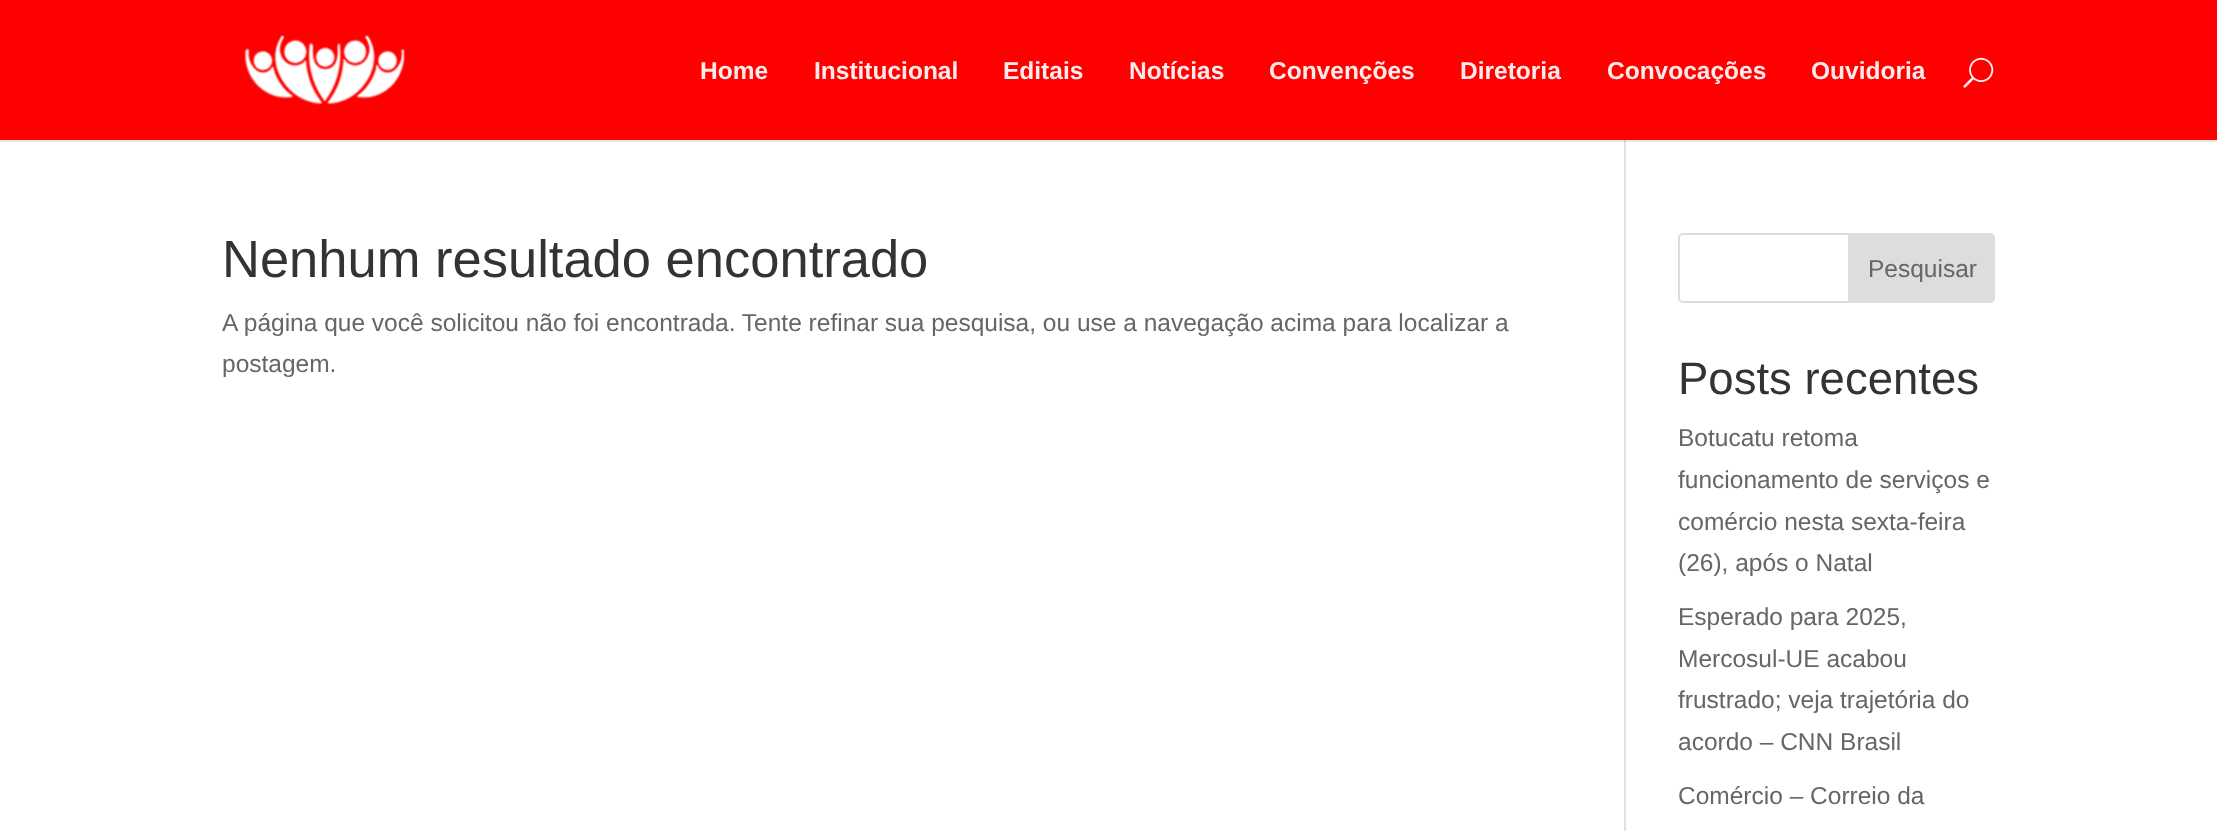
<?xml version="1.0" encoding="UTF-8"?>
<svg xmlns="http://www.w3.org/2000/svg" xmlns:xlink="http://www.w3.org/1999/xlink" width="2217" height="831">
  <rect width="100%" height="100%" fill="#ffffff" />
  <rect y="140" width="2217" height="2" fill="#e6e6e6" />
  <rect width="2217" height="140" fill="#ff0000" />
  <image x="244" y="35" width="161" height="70" xlink:href="image1.png" />
  <image x="1963" y="57" width="31" height="31" xlink:href="image2.png" />
  <rect x="1624" y="142" width="2" height="689" fill="#e2e2e2" />
  <rect x="1624" y="140" width="2" height="2" fill="#cbcbcb" />
  <rect x="1679" y="234" width="315" height="68" rx="4" fill="none" stroke="#dddddd" stroke-width="2" />
  <path d="M 1849 234 h 141 c 2 0 4 2 4 4 v 60 c 0 2 -2 4 -4 4 h -141 z" fill="#dddddd" stroke="#dddddd" stroke-width="2" />
  <text x="700" y="79" style="font-family: Liberation Sans; font-size: 24.5px; font-weight: bold; fill: #ffebeb">Home</text>
  <text x="814" y="79" style="font-family: Liberation Sans; font-size: 24.5px; font-weight: bold; fill: #ffebeb">Institucional</text>
  <text x="1003" y="79" style="font-family: Liberation Sans; font-size: 24.5px; font-weight: bold; fill: #ffebeb">Editais</text>
  <text x="1129" y="79" style="font-family: Liberation Sans; font-size: 24.5px; font-weight: bold; fill: #ffebeb">Notícias</text>
  <text x="1269" y="79" style="font-family: Liberation Sans; font-size: 24.5px; font-weight: bold; fill: #ffebeb">Convenções</text>
  <text x="1460" y="79" style="font-family: Liberation Sans; font-size: 24.5px; font-weight: bold; fill: #ffebeb">Diretoria</text>
  <text x="1607" y="79" style="font-family: Liberation Sans; font-size: 24.5px; font-weight: bold; fill: #ffebeb">Convocações</text>
  <text x="1811" y="79" style="font-family: Liberation Sans; font-size: 24.5px; font-weight: bold; fill: #ffebeb">Ouvidoria</text>
  <text x="222" y="277" style="font-family: Liberation Sans; font-size: 52.5px; fill: #333333">Nenhum resultado encontrado</text>
  <text x="222" y="331" style="font-family: Liberation Sans; font-size: 24.5px; fill: #666666">A página que você solicitou não foi encontrada. Tente refinar sua pesquisa, ou use a navegação acima para localizar a</text>
  <text x="222" y="372" style="font-family: Liberation Sans; font-size: 24.5px; fill: #666666">postagem.</text>
  <text x="1868" y="277" style="font-family: Liberation Sans; font-size: 24.5px; fill: #666666">Pesquisar</text>
  <text x="1678" y="394" style="font-family: Liberation Sans; font-size: 45.5px; fill: #333333">Posts recentes</text>
  <text x="1678" y="446" style="font-family: Liberation Sans; font-size: 24.5px; fill: #666666">Botucatu retoma</text>
  <text x="1678" y="488" style="font-family: Liberation Sans; font-size: 24.5px; fill: #666666">funcionamento de serviços e</text>
  <text x="1678" y="530" style="font-family: Liberation Sans; font-size: 24.5px; fill: #666666">comércio nesta sexta-feira</text>
  <text x="1678" y="571" style="font-family: Liberation Sans; font-size: 24.5px; fill: #666666">(26), após o Natal</text>
  <text x="1678" y="625" style="font-family: Liberation Sans; font-size: 24.5px; fill: #666666">Esperado para 2025,</text>
  <text x="1678" y="667" style="font-family: Liberation Sans; font-size: 24.5px; fill: #666666">Mercosul-UE acabou</text>
  <text x="1678" y="708" style="font-family: Liberation Sans; font-size: 24.5px; fill: #666666">frustrado; veja trajetória do</text>
  <text x="1678" y="750" style="font-family: Liberation Sans; font-size: 24.5px; fill: #666666">acordo – CNN Brasil</text>
  <text x="1678" y="804" style="font-family: Liberation Sans; font-size: 24.5px; fill: #666666">Comércio – Correio da</text>
</svg>
